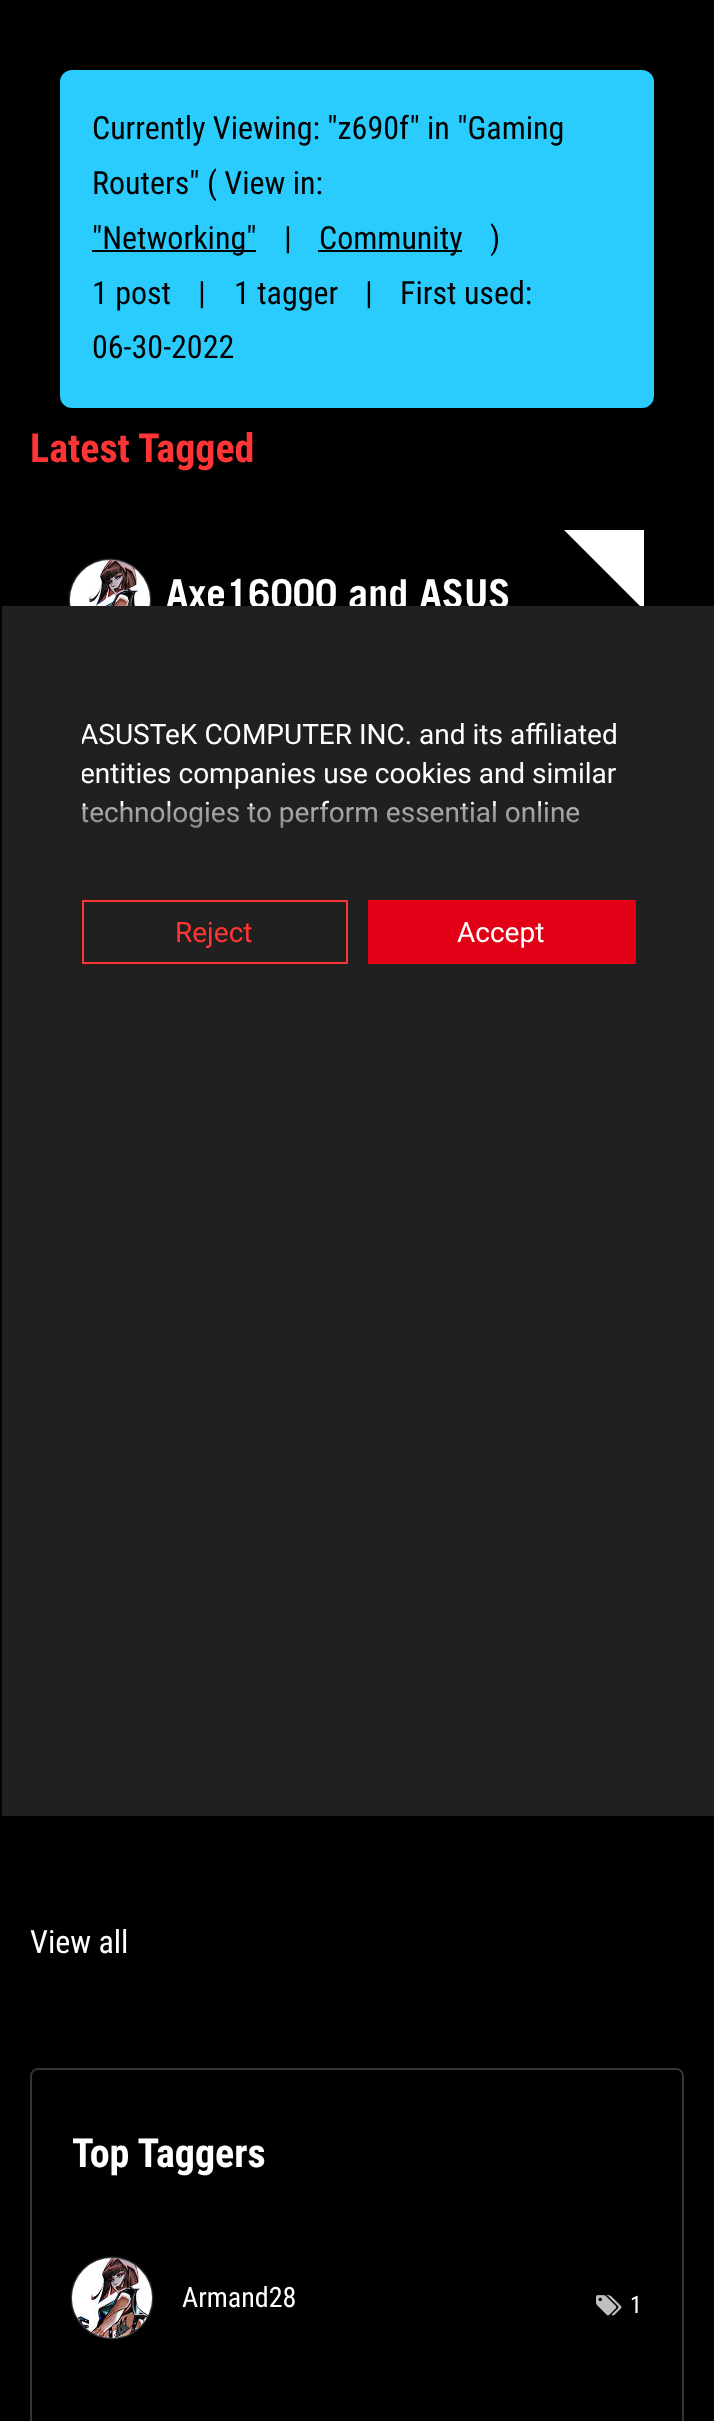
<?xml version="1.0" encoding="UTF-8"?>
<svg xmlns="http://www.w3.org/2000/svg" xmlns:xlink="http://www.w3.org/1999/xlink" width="714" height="2421">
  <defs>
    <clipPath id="clip1"><rect x="82" y="716" width="554" height="164" /></clipPath>
    <linearGradient id="g1" gradientUnits="userSpaceOnUse" x1="358" y1="807" x2="358" y2="885"><stop offset="0" stop-color="#202020" stop-opacity="0.36" /><stop offset="1" stop-color="#202020" /></linearGradient>
  </defs>
  <rect width="100%" height="100%" fill="#000000" />
  <rect x="61" y="71" width="592" height="336" rx="11" fill="#29ccfc" stroke="#29ccfc" stroke-width="2" />
  <rect x="92" y="250" width="164" height="2" fill="#000000" />
  <rect x="318" y="250" width="144" height="2" fill="#000000" />
  <rect x="70" y="560" width="80" height="80" rx="40" fill="#c4c4c4" filter="blur(1px)" />
  <image x="70" y="560" width="80" height="46" xlink:href="image1.png" />
  <path d="M 564 530 h 80 v 80 z" fill="#ffffff" />
  <rect x="31" y="2069" width="652" height="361" rx="7" fill="none" stroke="#333333" stroke-width="2" />
  <rect x="72" y="2258" width="80" height="80" rx="40" fill="#c4c4c4" filter="blur(1px)" />
  <image x="72" y="2258" width="80" height="80" xlink:href="image2.png" />
  <image x="596" y="2295" width="26" height="21" xlink:href="image3.png" />
  <text x="92" y="139" style="font-family: Roboto Condensed; font-size: 32px; fill: #000000">Currently Viewing: "z690f" in "Gaming</text>
  <text x="92" y="194" style="font-family: Roboto Condensed; font-size: 32px; fill: #000000">Routers" ( View in:</text>
  <text x="92" y="249" style="font-family: Roboto Condensed; font-size: 32px; fill: #000000">"Networking"</text>
  <text x="284" y="249" style="font-family: Roboto Condensed; font-size: 32px; fill: #000000">|</text>
  <text x="319" y="249" style="font-family: Roboto Condensed; font-size: 32px; fill: #000000">Community</text>
  <text x="490" y="249" style="font-family: Roboto Condensed; font-size: 32px; fill: #000000">)</text>
  <text x="92" y="304" style="font-family: Roboto Condensed; font-size: 32px; fill: #000000">1 post</text>
  <text x="198" y="304" style="font-family: Roboto Condensed; font-size: 32px; fill: #000000">|</text>
  <text x="234" y="304" style="font-family: Roboto Condensed; font-size: 32px; fill: #000000">1 tagger</text>
  <text x="365" y="304" style="font-family: Roboto Condensed; font-size: 32px; fill: #000000">|</text>
  <text x="400" y="304" style="font-family: Roboto Condensed; font-size: 32px; fill: #000000">First used:</text>
  <text x="92" y="358" style="font-family: Roboto Condensed; font-size: 32px; fill: #000000">06-30-2022</text>
  <text x="30" y="462" style="font-family: Roboto Condensed; font-size: 40px; font-weight: bold; fill: #ff3535">Latest Tagged</text>
  <text x="166" y="608" style="font-family: Trade Gothic; font-size: 40px; font-weight: bold; fill: #ffffff">Axe16000 and ASUS</text>
  <text x="30" y="1953" style="font-family: Roboto Condensed; font-size: 32px; fill: #ffffff">View all</text>
  <text x="72" y="2167" style="font-family: Roboto Condensed; font-size: 40px; font-weight: bold; fill: #ffffff">Top Taggers</text>
  <text x="182" y="2307" style="font-family: Roboto Condensed; font-size: 28px; fill: #ffffff">Armand28</text>
  <text x="630" y="2313" style="font-family: Roboto Condensed; font-size: 24px; fill: #ffffff">1</text>
  <rect x="2" y="606" width="712" height="1210" fill="#202020" />
  <g clip-path="url(#clip1)">
    <text x="80" y="744" style="font-family: Roboto; font-size: 28px; fill: #ffffff">ASUSTeK COMPUTER INC. and its affiliated</text>
    <text x="80" y="783" style="font-family: Roboto; font-size: 28px; fill: #ffffff">entities companies use cookies and similar</text>
    <text x="80" y="822" style="font-family: Roboto; font-size: 28px; fill: #ffffff">technologies to perform essential online</text>
  </g>
  <rect x="82" y="806" width="498" height="22" fill="url(#g1)" />
  <rect x="83" y="901" width="264" height="62" fill="none" stroke="#ff3535" stroke-width="2" />
  <text x="175" y="942" style="font-family: Roboto; font-size: 28px; fill: #ff3535">Reject</text>
  <rect x="368" y="900" width="268" height="64" fill="#e30017" />
  <text x="457" y="942" style="font-family: Roboto; font-size: 28px; fill: #ffffff">Accept</text>
</svg>
